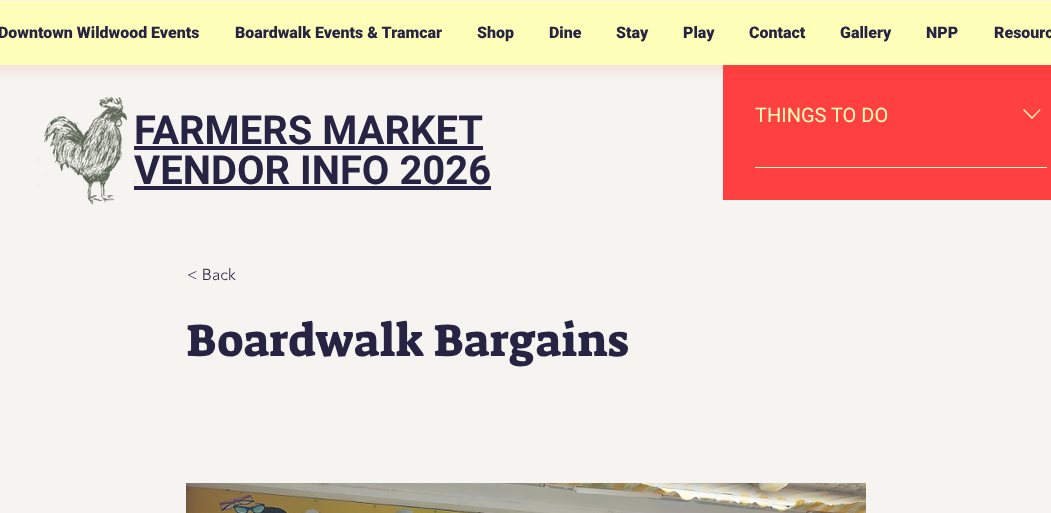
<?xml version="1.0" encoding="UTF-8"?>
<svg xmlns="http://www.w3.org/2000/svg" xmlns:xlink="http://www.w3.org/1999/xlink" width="1051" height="513">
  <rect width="100%" height="100%" fill="#f6f4f0" />
  <rect x="723" y="65" width="328" height="135" fill="#ff4040" />
  <rect x="-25" y="8" width="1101" height="64" rx="10" fill="#da392b" fill-opacity="0.1" filter="blur(5px)" />
  <rect y="1" width="1051" height="64" fill="#feffb9" />
  <rect x="134" y="146" width="349" height="4" fill="#272443" />
  <rect x="134" y="186" width="357" height="4" fill="#272443" />
  <path d="M 1040 109 l 0.5 1 l -8.5 9 l -9 -9 l 1 -1 l 8 8 z" fill="#feffb9" fill-rule="evenodd" />
  <rect x="755" y="167" width="292" height="1" fill="#feffb9" />
  <image x="186" y="483" width="680" height="30" xlink:href="image2.png" />
  <text x="-2" y="38" style="font-family: Roboto; font-size: 16px; font-weight: 900; fill: #272443">Downtown Wildwood Events</text>
  <text x="235" y="38" style="font-family: Roboto; font-size: 16px; font-weight: 900; fill: #272443">Boardwalk Events &amp; Tramcar</text>
  <text x="477" y="38" style="font-family: Roboto; font-size: 16px; font-weight: 900; fill: #272443">Shop</text>
  <text x="549" y="38" style="font-family: Roboto; font-size: 16px; font-weight: 900; fill: #272443">Dine</text>
  <text x="616" y="38" style="font-family: Roboto; font-size: 16px; font-weight: 900; fill: #272443">Stay</text>
  <text x="683" y="38" style="font-family: Roboto; font-size: 16px; font-weight: 900; fill: #272443">Play</text>
  <text x="749" y="38" style="font-family: Roboto; font-size: 16px; font-weight: 900; fill: #272443">Contact</text>
  <text x="840" y="38" style="font-family: Roboto; font-size: 16px; font-weight: 900; fill: #272443">Gallery</text>
  <text x="926" y="38" style="font-family: Roboto; font-size: 16px; font-weight: 900; fill: #272443">NPP</text>
  <text x="994" y="38" style="font-family: Roboto; font-size: 16px; font-weight: 900; fill: #272443">Resourc</text>
  <text x="134" y="144" style="font-family: Roboto; font-size: 40px; font-weight: bold; fill: #272443">FARMERS MARKET</text>
  <text x="134" y="184" style="font-family: Roboto; font-size: 40px; font-weight: bold; fill: #272443">VENDOR INFO 2026</text>
  <image x="37" y="96" width="100" height="109" xlink:href="image1.png" />
  <text x="755" y="122" style="font-family: Roboto; font-size: 20px; fill: #feffb9">THINGS TO DO</text>
  <text x="187" y="280" style="font-family: 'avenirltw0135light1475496'; font-size: 16px; font-weight: 300; fill: #272443">&lt; Back</text>
  <text x="186" y="356" style="font-family: Suez One; font-size: 46px; fill: #272443">Boardwalk Bargains</text>
</svg>
